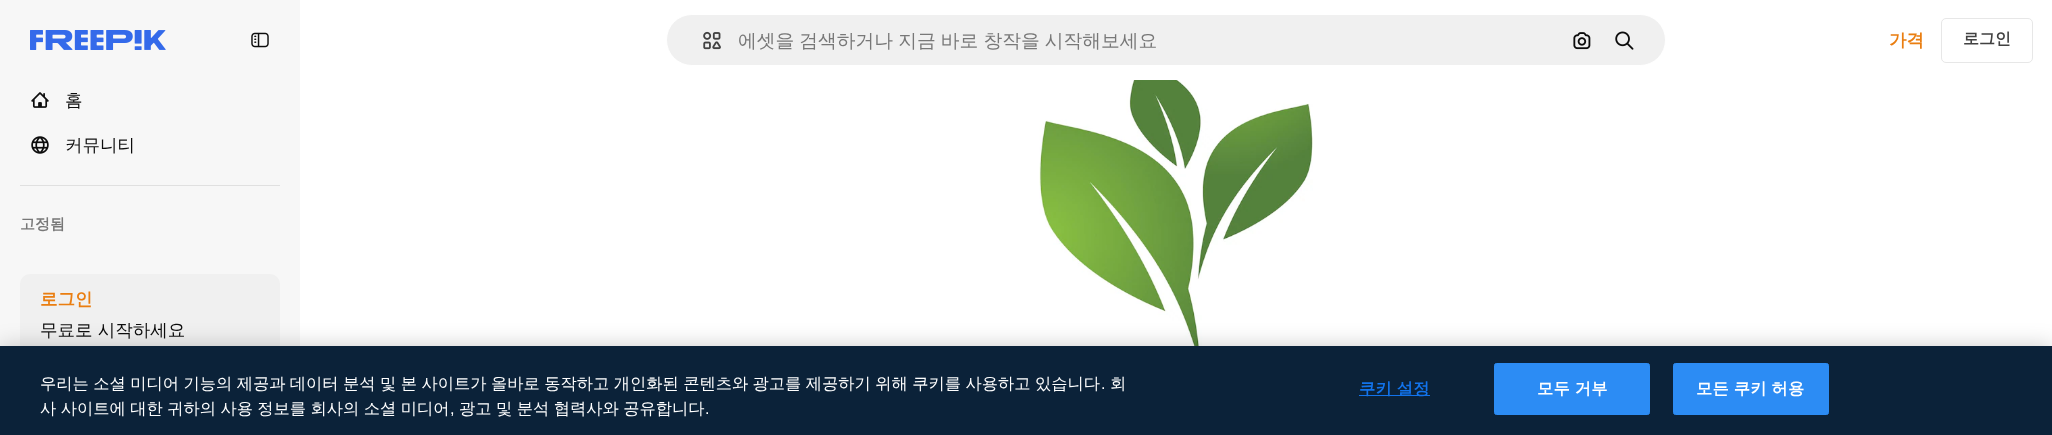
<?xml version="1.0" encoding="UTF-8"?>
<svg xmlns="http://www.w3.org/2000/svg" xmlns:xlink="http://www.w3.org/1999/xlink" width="2052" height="435">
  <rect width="100%" height="100%" fill="#ffffff" />
  <rect x="666.5" y="14.5" width="999" height="51" rx="25.5" fill="#f0f0f0" stroke="#ffffff" />
  <image x="703" y="31" width="18" height="19" xlink:href="image1.png" />
  <image x="1573" y="32" width="18" height="18" xlink:href="image2.png" />
  <image x="1615" y="31" width="19" height="19" xlink:href="image3.png" />
  <rect x="1941.5" y="18.5" width="91" height="44" rx="4.5" fill="none" stroke="#e7e7e7" />
  <image x="1039" y="80" width="274" height="266" xlink:href="image4.png" />
  <rect width="300" height="346" fill="#f7f7f7" />
  <image x="30" y="30" width="136" height="20" xlink:href="image5.png" />
  <image x="251" y="32" width="18" height="16" xlink:href="image6.png" />
  <image x="31" y="92" width="18" height="16" xlink:href="image7.png" />
  <image x="31" y="136" width="18" height="18" xlink:href="image8.png" />
  <rect x="20" y="185" width="260" height="1" fill="#e0e0e0" />
  <rect x="20" y="274" width="260" height="81" rx="10" fill="#f0f0f0" />
  <rect y="346" width="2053" height="89" fill="#000000" fill-opacity="0.2" filter="blur(11px)" />
  <rect y="346" width="2052" height="89" fill="#0b2239" />
  <rect x="1359" y="395" width="71" height="1" fill="#1273eb" />
  <rect x="1494.5" y="363.5" width="155" height="51" rx="2" fill="#2c8cf4" stroke="#2c8cf4" />
  <rect x="1673.5" y="363.5" width="155" height="51" rx="2" fill="#2c8cf4" stroke="#2c8cf4" />
  <text x="738" y="47" word-spacing="-0.5" style="font-family: WenQuanYi Zen Hei; font-size: 18.75px; font-weight: 500; fill: #787878">에셋을 검색하거나 지금 바로 창작을 시작해보세요</text>
  <text x="1889" y="46" style="font-family: WenQuanYi Zen Hei; font-size: 17.5px; font-weight: bold; fill: #ea7e11">가격</text>
  <text x="1963" y="44" style="font-family: WenQuanYi Zen Hei; font-size: 16px; font-weight: bold; fill: #424242">로그인</text>
  <text x="65" y="106" style="font-family: WenQuanYi Zen Hei; font-size: 17.5px; font-weight: 500; fill: #0d0d0d">홈</text>
  <text x="65" y="151" style="font-family: WenQuanYi Zen Hei; font-size: 17.5px; font-weight: 500; fill: #0d0d0d">커뮤니티</text>
  <text x="20" y="229" style="font-family: WenQuanYi Zen Hei; font-size: 15px; font-weight: bold; fill: #787878">고정됨</text>
  <text x="40" y="305" style="font-family: WenQuanYi Zen Hei; font-size: 17.5px; font-weight: bold; fill: #ea7e11">로그인</text>
  <text x="40" y="336" style="font-family: WenQuanYi Zen Hei; font-size: 17.5px; font-weight: 500; fill: #0d0d0d">무료로 시작하세요</text>
  <text x="40" y="389" word-spacing="-0.4" style="font-family: WenQuanYi Zen Hei; font-size: 16.25px; font-weight: 500; fill: #ffffff">우리는 소셜 미디어 기능의 제공과 데이터 분석 및 본 사이트가 올바로 동작하고 개인화된 콘텐츠와 광고를 제공하기 위해 쿠키를 사용하고 있습니다</text>
  <text x="1101" y="389" style="font-family: Liberation Sans; font-size: 16.25px; fill: #ffffff">.</text>
  <text x="1110" y="389" style="font-family: WenQuanYi Zen Hei; font-size: 16.25px; font-weight: 500; fill: #ffffff">회</text>
  <text x="40" y="414" word-spacing="-0.4" style="font-family: WenQuanYi Zen Hei; font-size: 16.25px; font-weight: 500; fill: #ffffff">사 사이트에 대한 귀하의 사용 정보를 회사의 소셜 미디어</text>
  <text x="450" y="414" style="font-family: Liberation Sans; font-size: 16.25px; fill: #ffffff">,</text>
  <text x="459" y="414" word-spacing="-0.4" style="font-family: WenQuanYi Zen Hei; font-size: 16.25px; font-weight: 500; fill: #ffffff">광고 및 분석 협력사와 공유합니다</text>
  <text x="705" y="414" style="font-family: Liberation Sans; font-size: 16.25px; fill: #ffffff">.</text>
  <text x="1359" y="394" word-spacing="-0.4" style="font-family: WenQuanYi Zen Hei; font-size: 16.25px; font-weight: bold; letter-spacing: 0.25px; fill: #1273eb">쿠키 설정</text>
  <text x="1537" y="394" word-spacing="-0.4" style="font-family: WenQuanYi Zen Hei; font-size: 16.25px; font-weight: bold; letter-spacing: 0.25px; fill: #ffffff">모두 거부</text>
  <text x="1696" y="394" word-spacing="-0.4" style="font-family: WenQuanYi Zen Hei; font-size: 16.25px; font-weight: bold; letter-spacing: 0.25px; fill: #ffffff">모든 쿠키 허용</text>
</svg>
